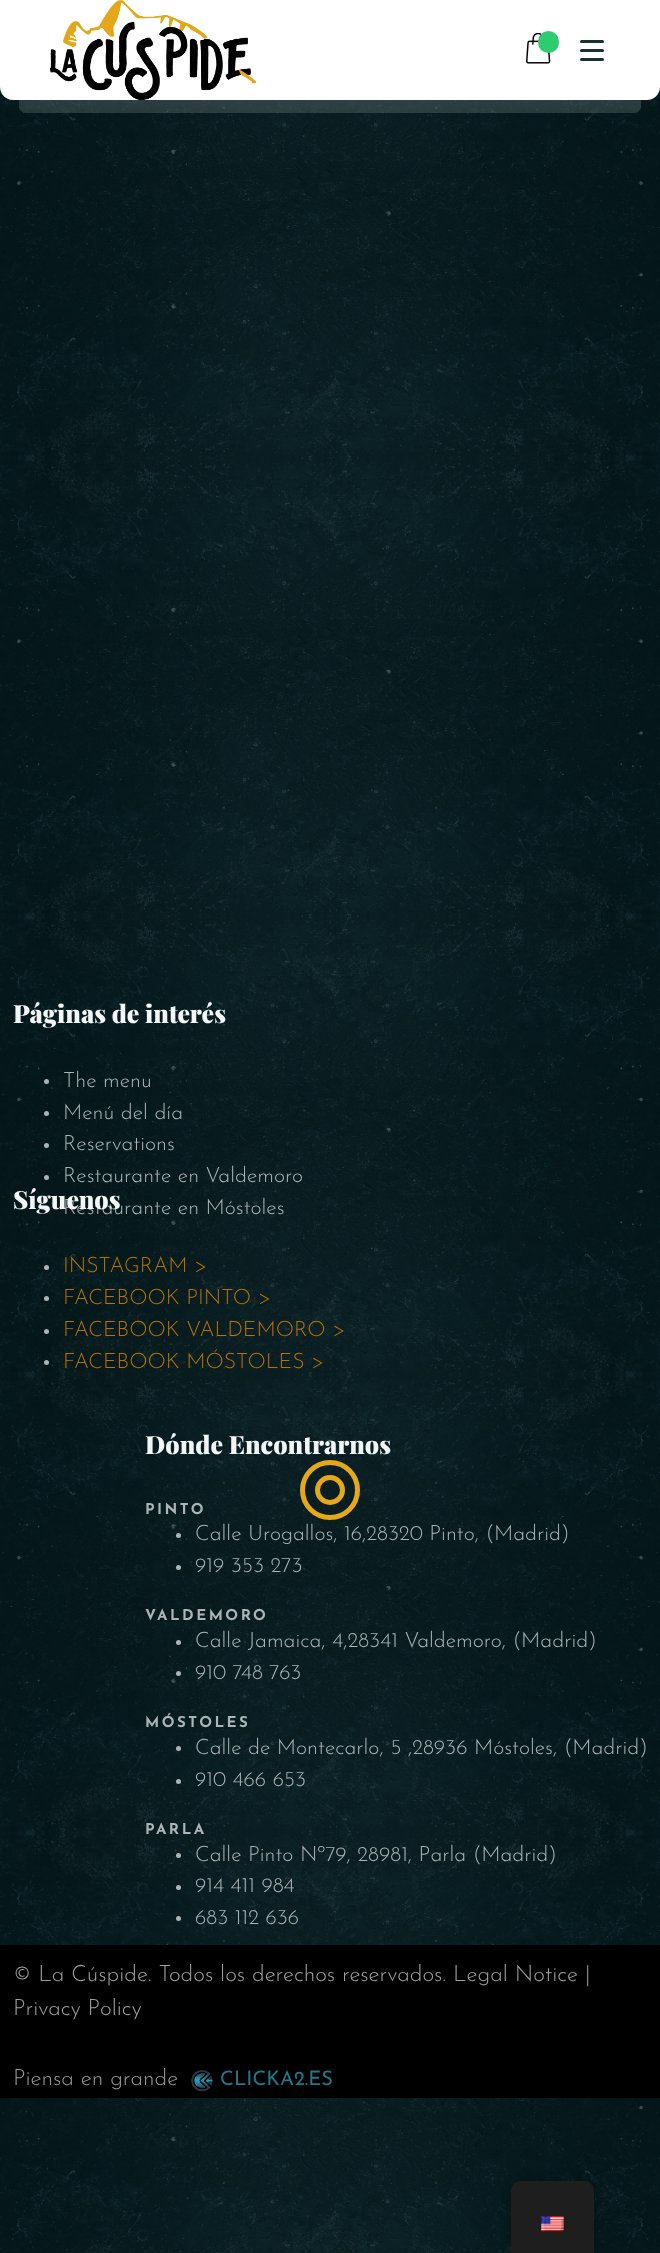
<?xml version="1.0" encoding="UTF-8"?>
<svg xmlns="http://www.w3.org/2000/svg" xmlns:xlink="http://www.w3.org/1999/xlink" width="660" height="2253">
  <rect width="100%" height="100%" fill="#ffffff" />
  <image x="0" y="87" width="660" height="2166" xlink:href="image1.png" />
  <rect y="6" width="660" height="100" rx="13" fill="#1a2f33" fill-opacity="0.2" filter="blur(6px)" />
  <path d="M 0 0 h 660 v 87 c 0 7 -6 13 -13 13 h -634 c -7 0 -13 -6 -13 -13 z" fill="#ffffff" />
  <image x="50" y="0" width="206" height="100" xlink:href="image2.png" />
  <image x="526" y="33" width="25" height="31" xlink:href="image3.png" />
  <rect x="538" y="31" width="21" height="22" rx="10.5" fill="#2ecc71" />
  <rect x="580" y="49" width="24" height="3" rx="1.5" fill="#1a2f33" />
  <rect x="580" y="40" width="24" height="3" rx="1.5" fill="#1a2f33" />
  <rect x="580" y="58" width="24" height="3" rx="1.5" fill="#1a2f33" />
  <path d="M 19 100 h 622 v 6.5 c 0 3.5 -3 6.5 -6.5 6.5 h -609 c -3.5 0 -6.5 -3 -6.5 -6.5 z" fill="#f2f6f7" fill-opacity="0.15" />
  <circle cx="46.5" cy="1081.5" r="2.5" fill="#f2f6f7" fill-opacity="0.7" />
  <circle cx="46.5" cy="1113.5" r="2.5" fill="#abb3b5" />
  <circle cx="46.5" cy="1145.5" r="2.5" fill="#f2f6f7" fill-opacity="0.7" />
  <circle cx="46.5" cy="1177.5" r="2.5" fill="#abb3b5" />
  <circle cx="46.5" cy="1208.5" r="2.5" fill="#f2f6f7" fill-opacity="0.7" />
  <circle cx="46.5" cy="1267.5" r="2.5" fill="#f2f6f7" fill-opacity="0.7" />
  <circle cx="46.5" cy="1298.5" r="2.5" fill="#f2f6f7" fill-opacity="0.7" />
  <circle cx="46.5" cy="1331.5" r="2.5" fill="#f2f6f7" fill-opacity="0.7" />
  <circle cx="46.5" cy="1362.5" r="2.5" fill="#f2f6f7" fill-opacity="0.7" />
  <circle cx="178.5" cy="1535.5" r="2.5" fill="#f2f6f7" fill-opacity="0.7" />
  <circle cx="178.5" cy="1567.5" r="2.5" fill="#abb4b6" />
  <circle cx="178.5" cy="1642.5" r="2.5" fill="#f2f6f7" fill-opacity="0.7" />
  <circle cx="178.5" cy="1673.5" r="2.5" fill="#f2f6f7" fill-opacity="0.7" />
  <circle cx="178.5" cy="1748.5" r="2.5" fill="#f2f6f7" fill-opacity="0.7" />
  <circle cx="178.5" cy="1781.5" r="2.5" fill="#f2f6f7" fill-opacity="0.7" />
  <circle cx="178.5" cy="1855.5" r="2.5" fill="#f2f6f7" fill-opacity="0.7" />
  <circle cx="178.5" cy="1887.5" r="2.5" fill="#f2f6f7" fill-opacity="0.7" />
  <circle cx="178.5" cy="1918.5" r="2.5" fill="#f2f6f7" fill-opacity="0.7" />
  <rect y="1945" width="660" height="153" fill="#000000" />
  <image x="191" y="2070" width="22" height="22" xlink:href="image4.png" />
  <circle cx="330" cy="1490" r="27.5" fill="none" stroke="#e4a819" stroke-width="5" />
  <circle cx="330" cy="1490" r="12.5" fill="none" stroke="#e4a819" stroke-width="5" />
  <rect x="511" y="2181" width="83" height="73" rx="10" fill="#000000" fill-opacity="0.25" filter="blur(5px)" />
  <path d="M 521 2181 h 63 c 5.5 0 10 4.5 10 10 v 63 h -83 v -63 c 0 -5.5 4.5 -10 10 -10 z" fill="#1e1e1e" />
  <image x="541" y="2216" width="23" height="16" xlink:href="image5.png" />
  <text x="13" y="1023" style="font-family: Playfair Display; font-size: 25px; font-weight: 900; fill: #f2f6f7">Páginas de interés</text>
  <text x="63" y="1087" style="font-family: Josefin Sans; font-size: 21.25px; font-weight: 300; fill: #abb4b6">The menu</text>
  <text x="63" y="1119" style="font-family: Josefin Sans; font-size: 21.25px; font-weight: 300; fill: #abb4b6">Menú del día</text>
  <text x="63" y="1150" style="font-family: Josefin Sans; font-size: 21.25px; font-weight: 300; fill: #abb4b6">Reservations</text>
  <text x="63" y="1182" style="font-family: Josefin Sans; font-size: 21.25px; font-weight: 300; fill: #abb4b6">Restaurante en Valdemoro</text>
  <text x="63" y="1214" style="font-family: Josefin Sans; font-size: 21.25px; font-weight: 300; fill: #abb4b6">Restaurante en Móstoles</text>
  <text x="13" y="1209" style="font-family: Playfair Display; font-size: 25px; font-weight: 900; fill: #f2f6f7">Síguenos</text>
  <text x="63" y="1272" style="font-family: Josefin Sans; font-size: 21.25px; font-weight: 300; fill: #b57309">INSTAGRAM &gt;</text>
  <text x="63" y="1304" style="font-family: Josefin Sans; font-size: 21.25px; font-weight: 300; fill: #b57309">FACEBOOK PINTO &gt;</text>
  <text x="63" y="1336" style="font-family: Josefin Sans; font-size: 21.25px; font-weight: 300; fill: #b57309">FACEBOOK VALDEMORO &gt;</text>
  <text x="63" y="1368" style="font-family: Josefin Sans; font-size: 21.25px; font-weight: 300; fill: #b57309">FACEBOOK MÓSTOLES &gt;</text>
  <text x="145" y="1454" style="font-family: Playfair Display; font-size: 25px; font-weight: 900; fill: #f2f6f7">Dónde Encontrarnos</text>
  <text x="145" y="1514" style="font-family: Josefin Sans; font-size: 15px; font-weight: bold; letter-spacing: 2.5px; fill: #abb4b6">PINTO</text>
  <text x="195" y="1540" style="font-family: Josefin Sans; font-size: 21.25px; font-weight: 300; fill: #abb4b6">Calle Urogallos, 16,28320 Pinto, (Madrid)</text>
  <text x="195" y="1572" style="font-family: Josefin Sans; font-size: 21.25px; font-weight: 300; fill: #abb4b6">919 353 273</text>
  <text x="145" y="1620" style="font-family: Josefin Sans; font-size: 15px; font-weight: bold; letter-spacing: 2.5px; fill: #abb4b6">VALDEMORO</text>
  <text x="195" y="1647" style="font-family: Josefin Sans; font-size: 21.25px; font-weight: 300; fill: #abb4b6">Calle Jamaica, 4,28341 Valdemoro, (Madrid)</text>
  <text x="195" y="1679" style="font-family: Josefin Sans; font-size: 21.25px; font-weight: 300; fill: #abb4b6">910 748 763</text>
  <text x="145" y="1727" style="font-family: Josefin Sans; font-size: 15px; font-weight: bold; letter-spacing: 2.5px; fill: #abb4b6">MÓSTOLES</text>
  <text x="195" y="1754" style="font-family: Josefin Sans; font-size: 21.25px; font-weight: 300; fill: #abb4b6">Calle de Montecarlo, 5 ,28936 Móstoles, (Madrid)</text>
  <text x="195" y="1786" style="font-family: Josefin Sans; font-size: 21.25px; font-weight: 300; fill: #abb4b6">910 466 653</text>
  <text x="145" y="1834" style="font-family: Josefin Sans; font-size: 15px; font-weight: bold; letter-spacing: 2.5px; fill: #abb4b6">PARLA</text>
  <text x="195" y="1861" style="font-family: Josefin Sans; font-size: 21.25px; font-weight: 300; fill: #abb4b6">Calle Pinto Nº79, 28981, Parla (Madrid)</text>
  <text x="195" y="1892" style="font-family: Josefin Sans; font-size: 21.25px; font-weight: 300; fill: #abb4b6">914 411 984</text>
  <text x="195" y="1924" style="font-family: Josefin Sans; font-size: 21.25px; font-weight: 300; fill: #abb4b6">683 112 636</text>
  <text x="13" y="1981" style="font-family: Josefin Sans; font-size: 22.5px; font-weight: 300; fill: #a0a0a0">© La Cúspide. Todos los derechos reservados. Legal Notice |</text>
  <text x="13" y="2015" style="font-family: Josefin Sans; font-size: 22.5px; font-weight: 300; fill: #a0a0a0">Privacy Policy</text>
  <text x="13" y="2085" style="font-family: Josefin Sans; font-size: 22.5px; font-weight: 300; fill: #999999">Piensa en grande</text>
  <text x="220" y="2085" style="font-family: Josefin Sans; font-size: 20px; fill: #25768b">CLICKA2.ES</text>
</svg>
